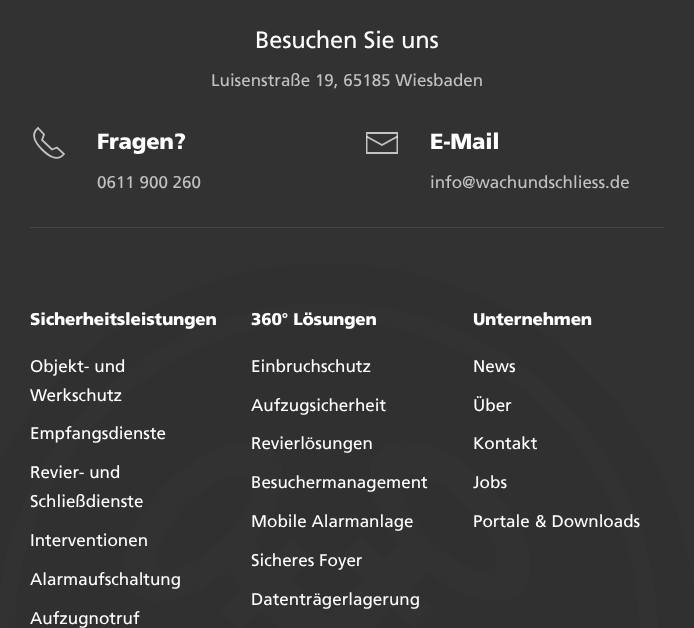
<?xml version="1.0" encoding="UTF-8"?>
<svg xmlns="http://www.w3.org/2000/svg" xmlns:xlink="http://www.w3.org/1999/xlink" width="694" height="628">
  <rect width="100%" height="100%" fill="#323233" />
  <image x="0" y="263" width="694" height="365" xlink:href="image1.png" />
  <path d="M 42 149.5 c 5.5 5.5 15 13 22 4.5 l -7 -6.5 l -5 2 l -10 -9.5 l 2 -5.5 l -6 -6.5 c -8.5 7 -1.5 16 4 21.5" fill="none" stroke="#c2c2c2" stroke-width="1.8" />
  <path d="M 366.5 136.5 l 15.5 8.5 l 15.5 -8.5" fill="none" stroke="#c2c2c2" stroke-width="1.8" />
  <path d="M 366 132 v 22 h 32 v -22 z m 30.5 20 h -29 v -18 h 29 z" fill="#ffffff" fill-opacity="0.7" />
  <rect x="30" y="227" width="634" height="1" fill="#474747" />
  <text x="255" y="48" style="font-family: Frutiger; font-size: 23.75px; letter-spacing: -0.25px; fill: #ffffff">Besuchen Sie uns</text>
  <text x="211" y="86" style="font-family: Frutiger; font-size: 17px; fill: #c2c2c2">Luisenstraße 19, 65185 Wiesbaden</text>
  <text x="97" y="149" style="font-family: Frutiger; font-size: 22px; font-weight: 900; letter-spacing: -0.25px; fill: #ffffff">Fragen?</text>
  <text x="97" y="188" style="font-family: Frutiger; font-size: 17px; fill: #c2c2c2">0611 900 260</text>
  <text x="430" y="149" style="font-family: Frutiger; font-size: 22px; font-weight: 900; letter-spacing: -0.25px; fill: #ffffff">E-Mail</text>
  <text x="430" y="188" style="font-family: Frutiger; font-size: 17px; fill: #c2c2c2">info@wachundschliess.de</text>
  <text x="30" y="325" style="font-family: Frutiger; font-size: 17px; font-weight: 900; letter-spacing: -0.2px; fill: #ffffff">Sicherheitsleistungen</text>
  <text x="30" y="372" style="font-family: Frutiger; font-size: 17px; fill: #ffffff">Objekt- und</text>
  <text x="30" y="401" style="font-family: Frutiger; font-size: 17px; fill: #ffffff">Werkschutz</text>
  <text x="30" y="439" style="font-family: Frutiger; font-size: 17px; fill: #ffffff">Empfangsdienste</text>
  <text x="30" y="478" style="font-family: Frutiger; font-size: 17px; fill: #ffffff">Revier- und</text>
  <text x="30" y="507" style="font-family: Frutiger; font-size: 17px; fill: #ffffff">Schließdienste</text>
  <text x="30" y="546" style="font-family: Frutiger; font-size: 17px; fill: #ffffff">Interventionen</text>
  <text x="30" y="585" style="font-family: Frutiger; font-size: 17px; fill: #ffffff">Alarmaufschaltung</text>
  <text x="30" y="624" style="font-family: Frutiger; font-size: 17px; fill: #ffffff">Aufzugnotruf</text>
  <text x="251" y="325" style="font-family: Frutiger; font-size: 17px; font-weight: 900; letter-spacing: -0.2px; fill: #ffffff">360° Lösungen</text>
  <text x="251" y="372" style="font-family: Frutiger; font-size: 17px; fill: #ffffff">Einbruchschutz</text>
  <text x="251" y="411" style="font-family: Frutiger; font-size: 17px; fill: #ffffff">Aufzugsicherheit</text>
  <text x="251" y="449" style="font-family: Frutiger; font-size: 17px; fill: #ffffff">Revierlösungen</text>
  <text x="251" y="488" style="font-family: Frutiger; font-size: 17px; fill: #ffffff">Besuchermanagement</text>
  <text x="251" y="527" style="font-family: Frutiger; font-size: 17px; fill: #ffffff">Mobile Alarmanlage</text>
  <text x="251" y="566" style="font-family: Frutiger; font-size: 17px; fill: #ffffff">Sicheres Foyer</text>
  <text x="251" y="605" style="font-family: Frutiger; font-size: 17px; fill: #ffffff">Datenträgerlagerung</text>
  <text x="473" y="325" style="font-family: Frutiger; font-size: 17px; font-weight: 900; letter-spacing: -0.2px; fill: #ffffff">Unternehmen</text>
  <text x="473" y="372" style="font-family: Frutiger; font-size: 17px; fill: #ffffff">News</text>
  <text x="473" y="411" style="font-family: Frutiger; font-size: 17px; fill: #ffffff">Über</text>
  <text x="473" y="449" style="font-family: Frutiger; font-size: 17px; fill: #ffffff">Kontakt</text>
  <text x="473" y="488" style="font-family: Frutiger; font-size: 17px; fill: #ffffff">Jobs</text>
  <text x="473" y="527" style="font-family: Frutiger; font-size: 17px; fill: #ffffff">Portale &amp; Downloads</text>
</svg>
